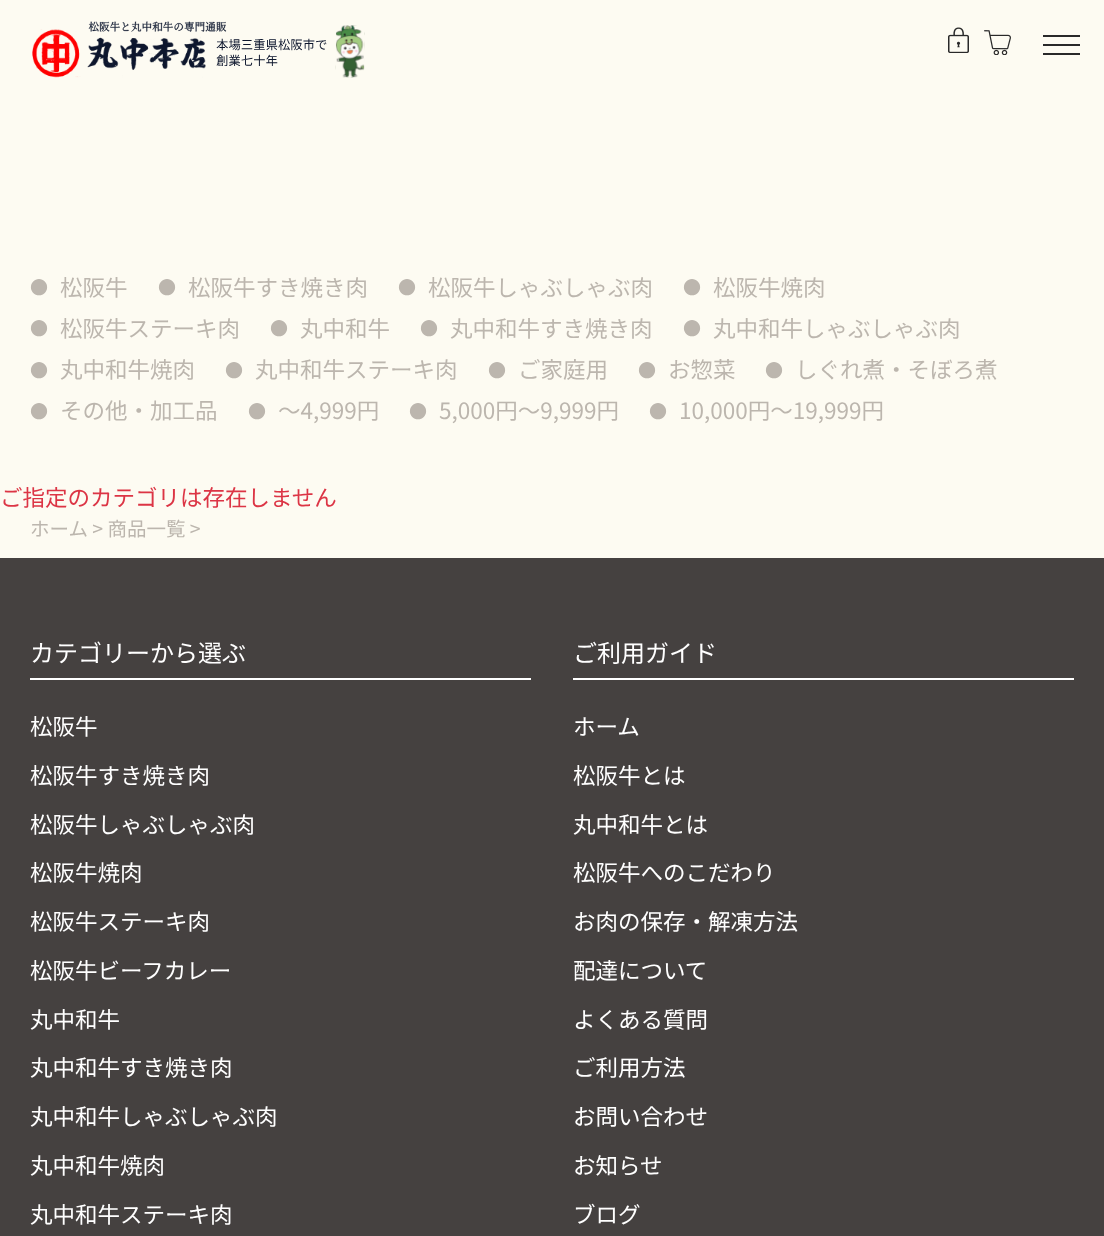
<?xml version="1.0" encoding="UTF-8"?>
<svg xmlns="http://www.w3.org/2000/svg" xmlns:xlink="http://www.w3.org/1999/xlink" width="1104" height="1236">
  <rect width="100%" height="100%" fill="#fdfbf2" />
  <image x="32" y="21" width="333" height="57" xlink:href="image1.png" />
  <image x="948" y="27" width="21" height="26" xlink:href="image2.png" />
  <image x="984" y="30" width="27" height="25" xlink:href="image3.png" />
  <rect x="1043" y="35" width="37" height="2" fill="#292929" />
  <rect x="1043" y="44" width="37" height="2" fill="#292929" />
  <rect x="1043" y="53" width="37" height="2" fill="#292929" />
  <rect y="558" width="1104" height="678" fill="#454140" />
  <rect x="30" y="678" width="501" height="2" fill="#ffffff" />
  <rect x="573" y="678" width="501" height="2" fill="#ffffff" />
  <text x="30" y="294" style="font-family: Noto Sans JP; font-size: 18px; fill: #bcb6ae">●</text>
  <text x="60" y="296" style="font-family: Noto Sans JP; font-size: 22.5px; fill: #bcb6ae">松阪牛</text>
  <text x="158" y="294" style="font-family: Noto Sans JP; font-size: 18px; fill: #bcb6ae">●</text>
  <text x="188" y="296" style="font-family: Noto Sans JP; font-size: 22.5px; fill: #bcb6ae">松阪牛すき焼き肉</text>
  <text x="398" y="294" style="font-family: Noto Sans JP; font-size: 18px; fill: #bcb6ae">●</text>
  <text x="428" y="296" style="font-family: Noto Sans JP; font-size: 22.5px; fill: #bcb6ae">松阪牛しゃぶしゃぶ肉</text>
  <text x="683" y="294" style="font-family: Noto Sans JP; font-size: 18px; fill: #bcb6ae">●</text>
  <text x="713" y="296" style="font-family: Noto Sans JP; font-size: 22.5px; fill: #bcb6ae">松阪牛焼肉</text>
  <text x="30" y="335" style="font-family: Noto Sans JP; font-size: 18px; fill: #bcb6ae">●</text>
  <text x="60" y="337" style="font-family: Noto Sans JP; font-size: 22.5px; fill: #bcb6ae">松阪牛ステーキ肉</text>
  <text x="270" y="335" style="font-family: Noto Sans JP; font-size: 18px; fill: #bcb6ae">●</text>
  <text x="300" y="337" style="font-family: Noto Sans JP; font-size: 22.5px; fill: #bcb6ae">丸中和牛</text>
  <text x="420" y="335" style="font-family: Noto Sans JP; font-size: 18px; fill: #bcb6ae">●</text>
  <text x="450" y="337" style="font-family: Noto Sans JP; font-size: 22.5px; fill: #bcb6ae">丸中和牛すき焼き肉</text>
  <text x="683" y="335" style="font-family: Noto Sans JP; font-size: 18px; fill: #bcb6ae">●</text>
  <text x="713" y="337" style="font-family: Noto Sans JP; font-size: 22.5px; fill: #bcb6ae">丸中和牛しゃぶしゃぶ肉</text>
  <text x="30" y="377" style="font-family: Noto Sans JP; font-size: 18px; fill: #bcb6ae">●</text>
  <text x="60" y="378" style="font-family: Noto Sans JP; font-size: 22.5px; fill: #bcb6ae">丸中和牛焼肉</text>
  <text x="225" y="377" style="font-family: Noto Sans JP; font-size: 18px; fill: #bcb6ae">●</text>
  <text x="255" y="378" style="font-family: Noto Sans JP; font-size: 22.5px; fill: #bcb6ae">丸中和牛ステーキ肉</text>
  <text x="488" y="377" style="font-family: Noto Sans JP; font-size: 18px; fill: #bcb6ae">●</text>
  <text x="518" y="378" style="font-family: Noto Sans JP; font-size: 22.5px; fill: #bcb6ae">ご家庭用</text>
  <text x="638" y="377" style="font-family: Noto Sans JP; font-size: 18px; fill: #bcb6ae">●</text>
  <text x="668" y="378" style="font-family: Noto Sans JP; font-size: 22.5px; fill: #bcb6ae">お惣菜</text>
  <text x="765" y="377" style="font-family: Noto Sans JP; font-size: 18px; fill: #bcb6ae">●</text>
  <text x="795" y="378" style="font-family: Noto Sans JP; font-size: 22.5px; fill: #bcb6ae">しぐれ煮・そぼろ煮</text>
  <text x="30" y="418" style="font-family: Noto Sans JP; font-size: 18px; fill: #bcb6ae">●</text>
  <text x="60" y="419" style="font-family: Noto Sans JP; font-size: 22.5px; fill: #bcb6ae">その他・加工品</text>
  <text x="248" y="418" style="font-family: Noto Sans JP; font-size: 18px; fill: #bcb6ae">●</text>
  <text x="278" y="419" style="font-family: Noto Sans JP; font-size: 22.5px; fill: #bcb6ae">〜4,999円</text>
  <text x="409" y="418" style="font-family: Noto Sans JP; font-size: 18px; fill: #bcb6ae">●</text>
  <text x="439" y="419" style="font-family: Noto Sans JP; font-size: 22.5px; fill: #bcb6ae">5,000円〜9,999円</text>
  <text x="649" y="418" style="font-family: Noto Sans JP; font-size: 18px; fill: #bcb6ae">●</text>
  <text x="679" y="419" style="font-family: Noto Sans JP; font-size: 22.5px; fill: #bcb6ae">10,000円〜19,999円</text>
  <text x="0" y="506" style="font-family: Noto Sans JP; font-size: 22.5px; fill: #dc3545">ご指定のカテゴリは存在しません</text>
  <text x="30" y="536" style="font-family: Noto Sans JP; font-size: 19.5px; fill: #bcb6ae">ホーム &gt; 商品一覧 &gt;</text>
  <text x="30" y="662" style="font-family: Noto Sans JP; font-size: 24px; fill: #ffffff">カテゴリーから選ぶ</text>
  <text x="30" y="735" style="font-family: Noto Sans JP; font-size: 22.5px; fill: #ffffff">松阪牛</text>
  <text x="30" y="784" style="font-family: Noto Sans JP; font-size: 22.5px; fill: #ffffff">松阪牛すき焼き肉</text>
  <text x="30" y="833" style="font-family: Noto Sans JP; font-size: 22.5px; fill: #ffffff">松阪牛しゃぶしゃぶ肉</text>
  <text x="30" y="881" style="font-family: Noto Sans JP; font-size: 22.5px; fill: #ffffff">松阪牛焼肉</text>
  <text x="30" y="930" style="font-family: Noto Sans JP; font-size: 22.5px; fill: #ffffff">松阪牛ステーキ肉</text>
  <text x="30" y="979" style="font-family: Noto Sans JP; font-size: 22.5px; fill: #ffffff">松阪牛ビーフカレー</text>
  <text x="30" y="1028" style="font-family: Noto Sans JP; font-size: 22.5px; fill: #ffffff">丸中和牛</text>
  <text x="30" y="1076" style="font-family: Noto Sans JP; font-size: 22.5px; fill: #ffffff">丸中和牛すき焼き肉</text>
  <text x="30" y="1125" style="font-family: Noto Sans JP; font-size: 22.5px; fill: #ffffff">丸中和牛しゃぶしゃぶ肉</text>
  <text x="30" y="1174" style="font-family: Noto Sans JP; font-size: 22.5px; fill: #ffffff">丸中和牛焼肉</text>
  <text x="30" y="1223" style="font-family: Noto Sans JP; font-size: 22.5px; fill: #ffffff">丸中和牛ステーキ肉</text>
  <text x="573" y="662" style="font-family: Noto Sans JP; font-size: 24px; fill: #ffffff">ご利用ガイド</text>
  <text x="573" y="735" style="font-family: Noto Sans JP; font-size: 22.5px; fill: #ffffff">ホーム</text>
  <text x="573" y="784" style="font-family: Noto Sans JP; font-size: 22.5px; fill: #ffffff">松阪牛とは</text>
  <text x="573" y="833" style="font-family: Noto Sans JP; font-size: 22.5px; fill: #ffffff">丸中和牛とは</text>
  <text x="573" y="881" style="font-family: Noto Sans JP; font-size: 22.5px; fill: #ffffff">松阪牛へのこだわり</text>
  <text x="573" y="930" style="font-family: Noto Sans JP; font-size: 22.5px; fill: #ffffff">お肉の保存・解凍方法</text>
  <text x="573" y="979" style="font-family: Noto Sans JP; font-size: 22.5px; fill: #ffffff">配達について</text>
  <text x="573" y="1028" style="font-family: Noto Sans JP; font-size: 22.5px; fill: #ffffff">よくある質問</text>
  <text x="573" y="1076" style="font-family: Noto Sans JP; font-size: 22.5px; fill: #ffffff">ご利用方法</text>
  <text x="573" y="1125" style="font-family: Noto Sans JP; font-size: 22.5px; fill: #ffffff">お問い合わせ</text>
  <text x="573" y="1174" style="font-family: Noto Sans JP; font-size: 22.5px; fill: #ffffff">お知らせ</text>
  <text x="573" y="1223" style="font-family: Noto Sans JP; font-size: 22.5px; fill: #ffffff">ブログ</text>
</svg>
